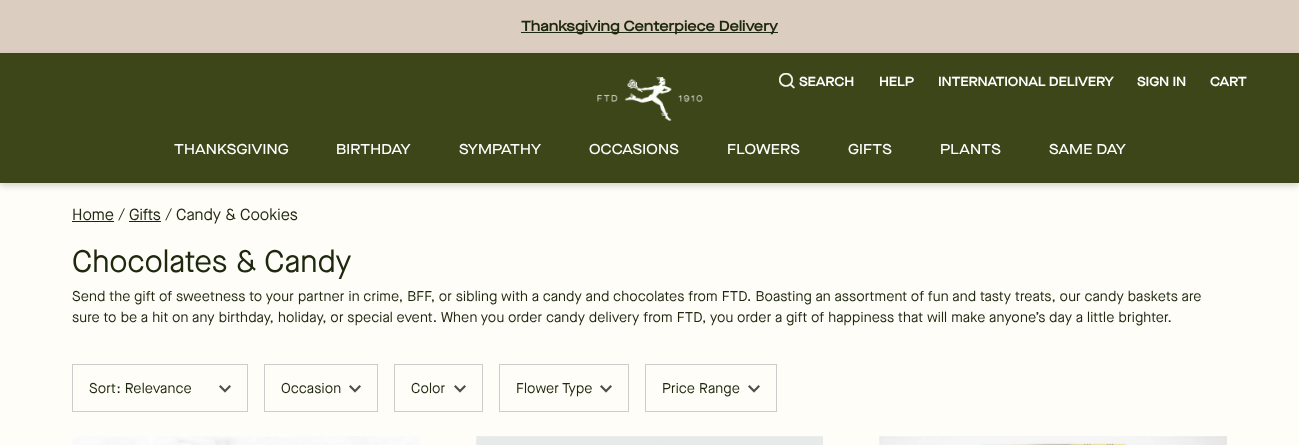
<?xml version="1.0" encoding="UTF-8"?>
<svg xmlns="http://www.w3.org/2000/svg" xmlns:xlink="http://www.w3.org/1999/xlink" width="1299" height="445">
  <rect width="100%" height="100%" fill="#fffdf8" />
  <rect width="1299" height="53" fill="#dbcec1" />
  <rect x="521" y="32" width="257" height="1" fill="#1e280f" />
  <rect y="56" width="1299" height="130" fill="#000000" fill-opacity="0.16" filter="blur(3px)" />
  <rect y="53" width="1299" height="130" fill="#3c4619" />
  <image x="597" y="77" width="106" height="44" xlink:href="image1.png" />
  <image x="779" y="73" width="16" height="16" xlink:href="image2.png" />
  <rect x="72" y="221" width="42" height="1" fill="#1e280f" />
  <rect x="129" y="221" width="32" height="1" fill="#1e280f" />
  <rect x="72.5" y="364.5" width="175" height="47" fill="none" stroke="#cccccc" />
  <image x="219" y="385" width="12" height="8" xlink:href="image3.png" />
  <rect x="264.5" y="364.5" width="113" height="47" fill="none" stroke="#cccccc" />
  <image x="349" y="385" width="12" height="8" xlink:href="image3.png" />
  <rect x="394.5" y="364.5" width="88" height="47" fill="none" stroke="#cccccc" />
  <image x="454" y="385" width="12" height="8" xlink:href="image3.png" />
  <rect x="499.5" y="364.5" width="129" height="47" fill="none" stroke="#cccccc" />
  <image x="600" y="385" width="12" height="8" xlink:href="image3.png" />
  <rect x="645.5" y="364.5" width="131" height="47" fill="none" stroke="#cccccc" />
  <image x="748" y="385" width="12" height="8" xlink:href="image3.png" />
  <image x="72" y="436" width="348" height="9" xlink:href="image4.png" />
  <image x="476" y="436" width="347" height="9" xlink:href="image5.png" />
  <image x="879" y="436" width="348" height="9" xlink:href="image6.png" />
  <text x="521" y="31" style="font-family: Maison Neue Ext; font-size: 14.22px; font-weight: bold; letter-spacing: 0.15px; fill: #1e280f">Thanksgiving Centerpiece Delivery</text>
  <text x="799" y="86" style="font-family: Maison Neue Ext; font-size: 12.6px; font-weight: bold; letter-spacing: 0.15px; fill: #ffffff">SEARCH</text>
  <text x="879" y="86" style="font-family: Maison Neue Ext; font-size: 12.6px; font-weight: bold; letter-spacing: 0.15px; fill: #ffffff">HELP</text>
  <text x="938" y="86" style="font-family: Maison Neue Ext; font-size: 12.6px; font-weight: bold; letter-spacing: 0.15px; fill: #ffffff">INTERNATIONAL DELIVERY</text>
  <text x="1137" y="86" style="font-family: Maison Neue Ext; font-size: 12.6px; font-weight: bold; letter-spacing: 0.15px; fill: #ffffff">SIGN IN</text>
  <text x="1210" y="86" style="font-family: Maison Neue Ext; font-size: 12.6px; font-weight: bold; letter-spacing: 0.15px; fill: #ffffff">CART</text>
  <text x="174" y="154" style="font-family: Maison Neue Ext; font-size: 14.22px; font-weight: 500; letter-spacing: 0.15px; fill: #ffffff">THANKSGIVING</text>
  <text x="336" y="154" style="font-family: Maison Neue Ext; font-size: 14.22px; font-weight: 500; letter-spacing: 0.15px; fill: #ffffff">BIRTHDAY</text>
  <text x="459" y="154" style="font-family: Maison Neue Ext; font-size: 14.22px; font-weight: 500; letter-spacing: 0.15px; fill: #ffffff">SYMPATHY</text>
  <text x="589" y="154" style="font-family: Maison Neue Ext; font-size: 14.22px; font-weight: 500; letter-spacing: 0.15px; fill: #ffffff">OCCASIONS</text>
  <text x="727" y="154" style="font-family: Maison Neue Ext; font-size: 14.22px; font-weight: 500; letter-spacing: 0.15px; fill: #ffffff">FLOWERS</text>
  <text x="848" y="154" style="font-family: Maison Neue Ext; font-size: 14.22px; font-weight: 500; letter-spacing: 0.15px; fill: #ffffff">GIFTS</text>
  <text x="940" y="154" style="font-family: Maison Neue Ext; font-size: 14.22px; font-weight: 500; letter-spacing: 0.15px; fill: #ffffff">PLANTS</text>
  <text x="1049" y="154" style="font-family: Maison Neue Ext; font-size: 14.22px; font-weight: 500; letter-spacing: 0.15px; fill: #ffffff">SAME DAY</text>
  <text x="72" y="220" style="font-family: Maison Neue; font-size: 16px; fill: #1e280f">Home</text>
  <text x="118" y="220" style="font-family: Maison Neue; font-size: 16px; fill: #1e280f">/</text>
  <text x="129" y="220" style="font-family: Maison Neue; font-size: 16px; fill: #1e280f">Gifts</text>
  <text x="165" y="220" style="font-family: Maison Neue; font-size: 16px; fill: #1e280f">/</text>
  <text x="176" y="220" style="font-family: Maison Neue; font-size: 16px; fill: #1e280f">Candy &amp; Cookies</text>
  <text x="72" y="272" style="font-family: Maison Neue; font-size: 31px; fill: #1e280f">Chocolates &amp; Candy</text>
  <text x="72" y="301" style="font-family: Maison Neue; font-size: 14.22px; letter-spacing: 0.15px; fill: #1e280f">Send the gift of sweetness to your partner in crime, BFF, or sibling with a candy and chocolates from FTD. Boasting an assortment of fun and tasty treats, our candy baskets are</text>
  <text x="72" y="322" style="font-family: Maison Neue; font-size: 14.22px; letter-spacing: 0.15px; fill: #1e280f">sure to be a hit on any birthday, holiday, or special event. When you order candy delivery from FTD, you order a gift of happiness that will make anyone’s day a little brighter.</text>
  <text x="89" y="393" style="font-family: Maison Neue; font-size: 14.22px; letter-spacing: 0.15px; fill: #1e280f">Sort: Relevance</text>
  <text x="281" y="393" style="font-family: Maison Neue; font-size: 14.22px; letter-spacing: 0.15px; fill: #1e280f">Occasion</text>
  <text x="411" y="393" style="font-family: Maison Neue; font-size: 14.22px; letter-spacing: 0.15px; fill: #1e280f">Color</text>
  <text x="516" y="393" style="font-family: Maison Neue; font-size: 14.22px; letter-spacing: 0.15px; fill: #1e280f">Flower Type</text>
  <text x="662" y="393" style="font-family: Maison Neue; font-size: 14.22px; letter-spacing: 0.15px; fill: #1e280f">Price Range</text>
</svg>
